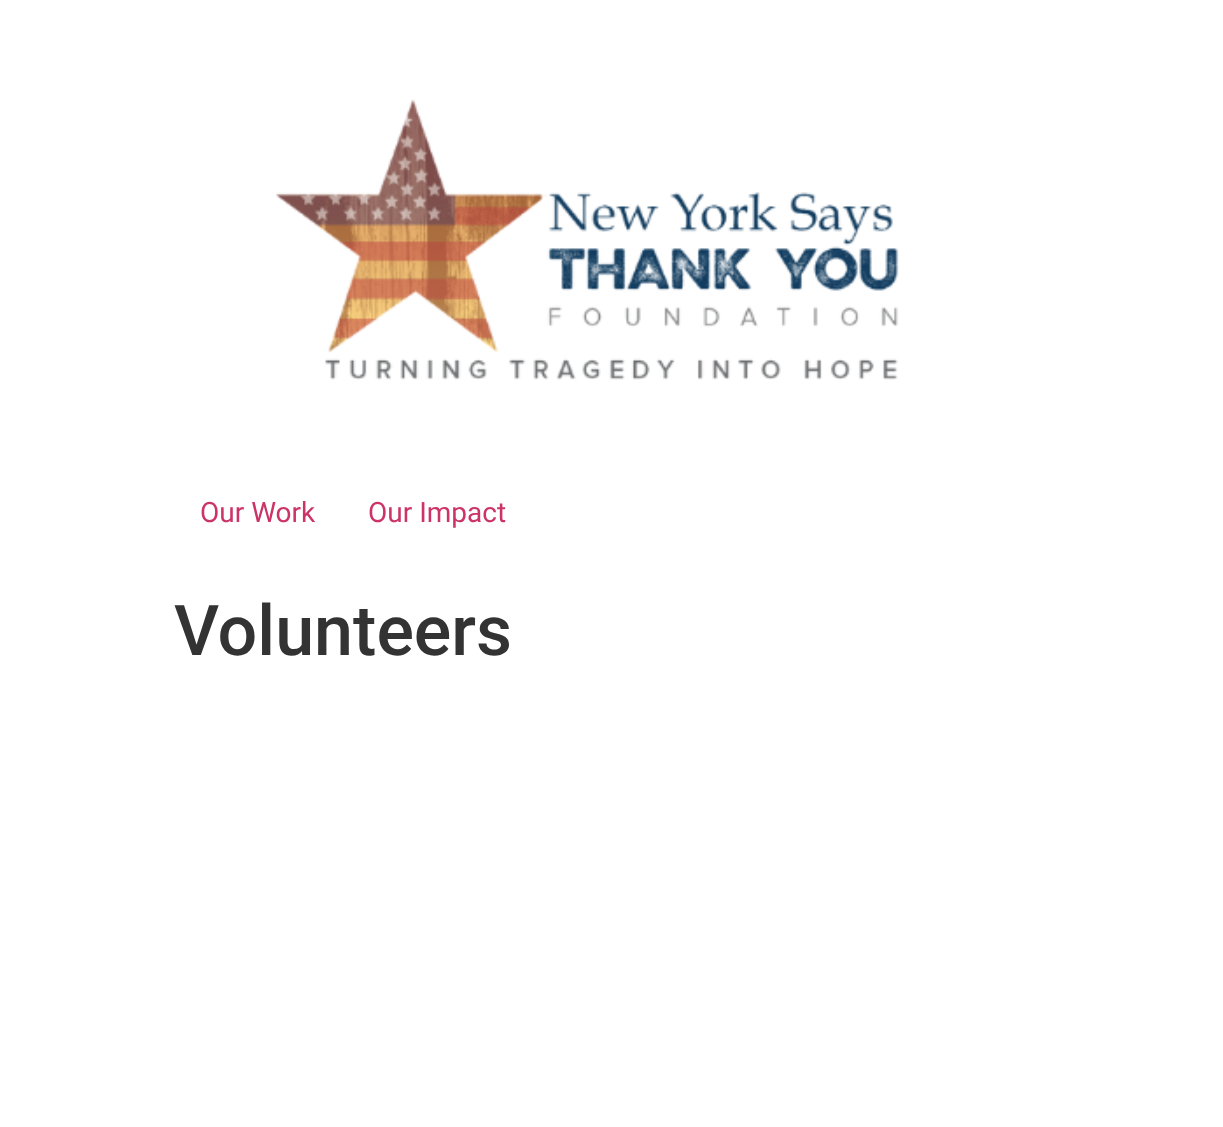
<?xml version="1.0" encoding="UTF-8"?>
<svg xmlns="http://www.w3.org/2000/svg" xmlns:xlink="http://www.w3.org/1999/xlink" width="1223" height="1127">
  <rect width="100%" height="100%" fill="#ffffff" />
  <image x="276" y="99" width="623" height="281" xlink:href="image1.png" />
  <text x="200" y="522" style="font-family: Roboto; font-size: 28px; fill: #cc3366">Our Work</text>
  <text x="368" y="522" style="font-family: Roboto; font-size: 28px; fill: #cc3366">Our Impact</text>
  <text x="174" y="655" style="font-family: Roboto; font-size: 70px; font-weight: 500; fill: #333333">Volunteers</text>
</svg>
